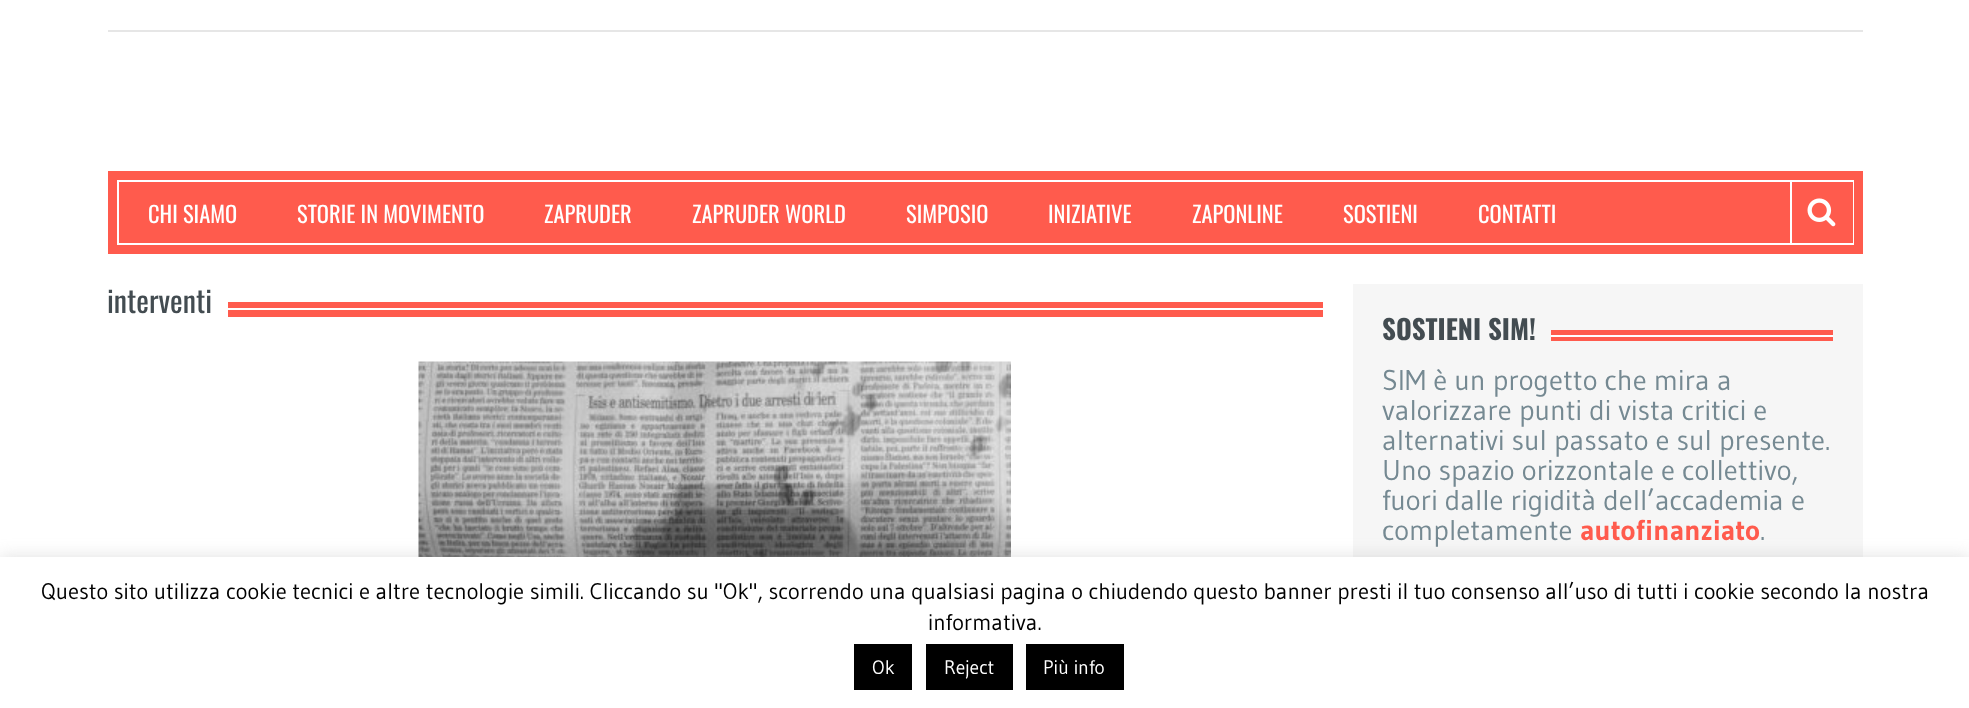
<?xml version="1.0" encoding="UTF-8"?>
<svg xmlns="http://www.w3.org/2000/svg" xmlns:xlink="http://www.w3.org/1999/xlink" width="1969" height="708">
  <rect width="100%" height="100%" fill="#ffffff" />
  <rect x="108" y="30" width="1755" height="2" fill="#e6e6e6" />
  <rect x="108" y="171" width="1755" height="83" fill="#ff5b4d" />
  <rect x="118" y="181" width="1735" height="63" fill="none" stroke="#ffffff" stroke-width="2" />
  <rect x="1790" y="182" width="2" height="61" fill="#ffffff" />
  <image x="1807" y="198" width="29" height="29" xlink:href="image1.png" />
  <rect x="1852" y="182" width="1" height="61" fill="#ff5b4d" />
  <rect x="228" y="302" width="1095" height="15" fill="#ff5b4d" />
  <rect x="228" y="308" width="1095" height="2" fill="#ffffff" />
  <image x="418" y="361" width="593" height="196" xlink:href="image2.png" />
  <rect x="1353" y="284" width="510" height="273" fill="#f6f6f6" />
  <rect x="1551" y="330" width="282" height="11" fill="#ff5b4d" />
  <rect x="1551" y="335" width="282" height="2" fill="#ffffff" />
  <rect y="555" width="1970" height="152" fill="#acabab" fill-opacity="0.3" filter="blur(7.5px)" />
  <rect y="557" width="1969" height="151" fill="#ffffff" />
  <rect x="854" y="644" width="58" height="46" fill="#000000" />
  <rect x="926" y="644" width="87" height="46" fill="#000000" />
  <rect x="1026" y="644" width="98" height="46" fill="#000000" />
  <text x="148" y="223" style="font-family: Oswald; font-size: 22.5px; fill: #ffffff">CHI SIAMO</text>
  <text x="297" y="223" style="font-family: Oswald; font-size: 22.5px; fill: #ffffff">STORIE IN MOVIMENTO</text>
  <text x="544" y="223" style="font-family: Oswald; font-size: 22.5px; fill: #ffffff">ZAPRUDER</text>
  <text x="692" y="223" style="font-family: Oswald; font-size: 22.5px; fill: #ffffff">ZAPRUDER WORLD</text>
  <text x="906" y="223" style="font-family: Oswald; font-size: 22.5px; fill: #ffffff">SIMPOSIO</text>
  <text x="1048" y="223" style="font-family: Oswald; font-size: 22.5px; fill: #ffffff">INIZIATIVE</text>
  <text x="1192" y="223" style="font-family: Oswald; font-size: 22.5px; fill: #ffffff">ZAPONLINE</text>
  <text x="1343" y="223" style="font-family: Oswald; font-size: 22.5px; fill: #ffffff">SOSTIENI</text>
  <text x="1478" y="223" style="font-family: Oswald; font-size: 22.5px; fill: #ffffff">CONTATTI</text>
  <text x="107" y="313" style="font-family: Oswald; font-size: 30px; fill: #434c51">interventi</text>
  <text x="1382" y="340" style="font-family: Oswald; font-size: 27px; font-weight: bold; fill: #434c51">SOSTIENI SIM!</text>
  <text x="1382" y="390" style="font-family: Gudea; font-size: 28.5px; fill: #758992">SIM è un progetto che mira a</text>
  <text x="1382" y="420" style="font-family: Gudea; font-size: 28.5px; fill: #758992">valorizzare punti di vista critici e</text>
  <text x="1382" y="450" style="font-family: Gudea; font-size: 28.5px; fill: #758992">alternativi sul passato e sul presente.</text>
  <text x="1382" y="480" style="font-family: Gudea; font-size: 28.5px; fill: #758992">Uno spazio orizzontale e collettivo,</text>
  <text x="1382" y="510" style="font-family: Gudea; font-size: 28.5px; fill: #758992">fuori dalle rigidità dell’accademia e</text>
  <text x="1382" y="540" style="font-family: Gudea; font-size: 28.5px; fill: #758992">completamente</text>
  <text x="1580" y="540" style="font-family: Gudea; font-size: 28.5px; font-weight: bold; fill: #ff5b4d">autofinanziato</text>
  <text x="1760" y="540" style="font-family: Gudea; font-size: 28.5px; fill: #758992">.</text>
  <text x="41" y="599" style="font-family: Gudea; font-size: 22.5px; fill: #000000">Questo sito utilizza cookie tecnici e altre tecnologie simili. Cliccando su "Ok", scorrendo una qualsiasi pagina o chiudendo questo banner presti il tuo consenso all’uso di tutti i cookie secondo la nostra</text>
  <text x="928" y="630" style="font-family: Gudea; font-size: 22.5px; fill: #000000">informativa.</text>
  <text x="872" y="674" style="font-family: Gudea; font-size: 19.5px; fill: #ffffff">Ok</text>
  <text x="944" y="674" style="font-family: Gudea; font-size: 19.5px; fill: #ffffff">Reject</text>
  <text x="1043" y="674" style="font-family: Gudea; font-size: 19.5px; fill: #ffffff">Più info</text>
</svg>
